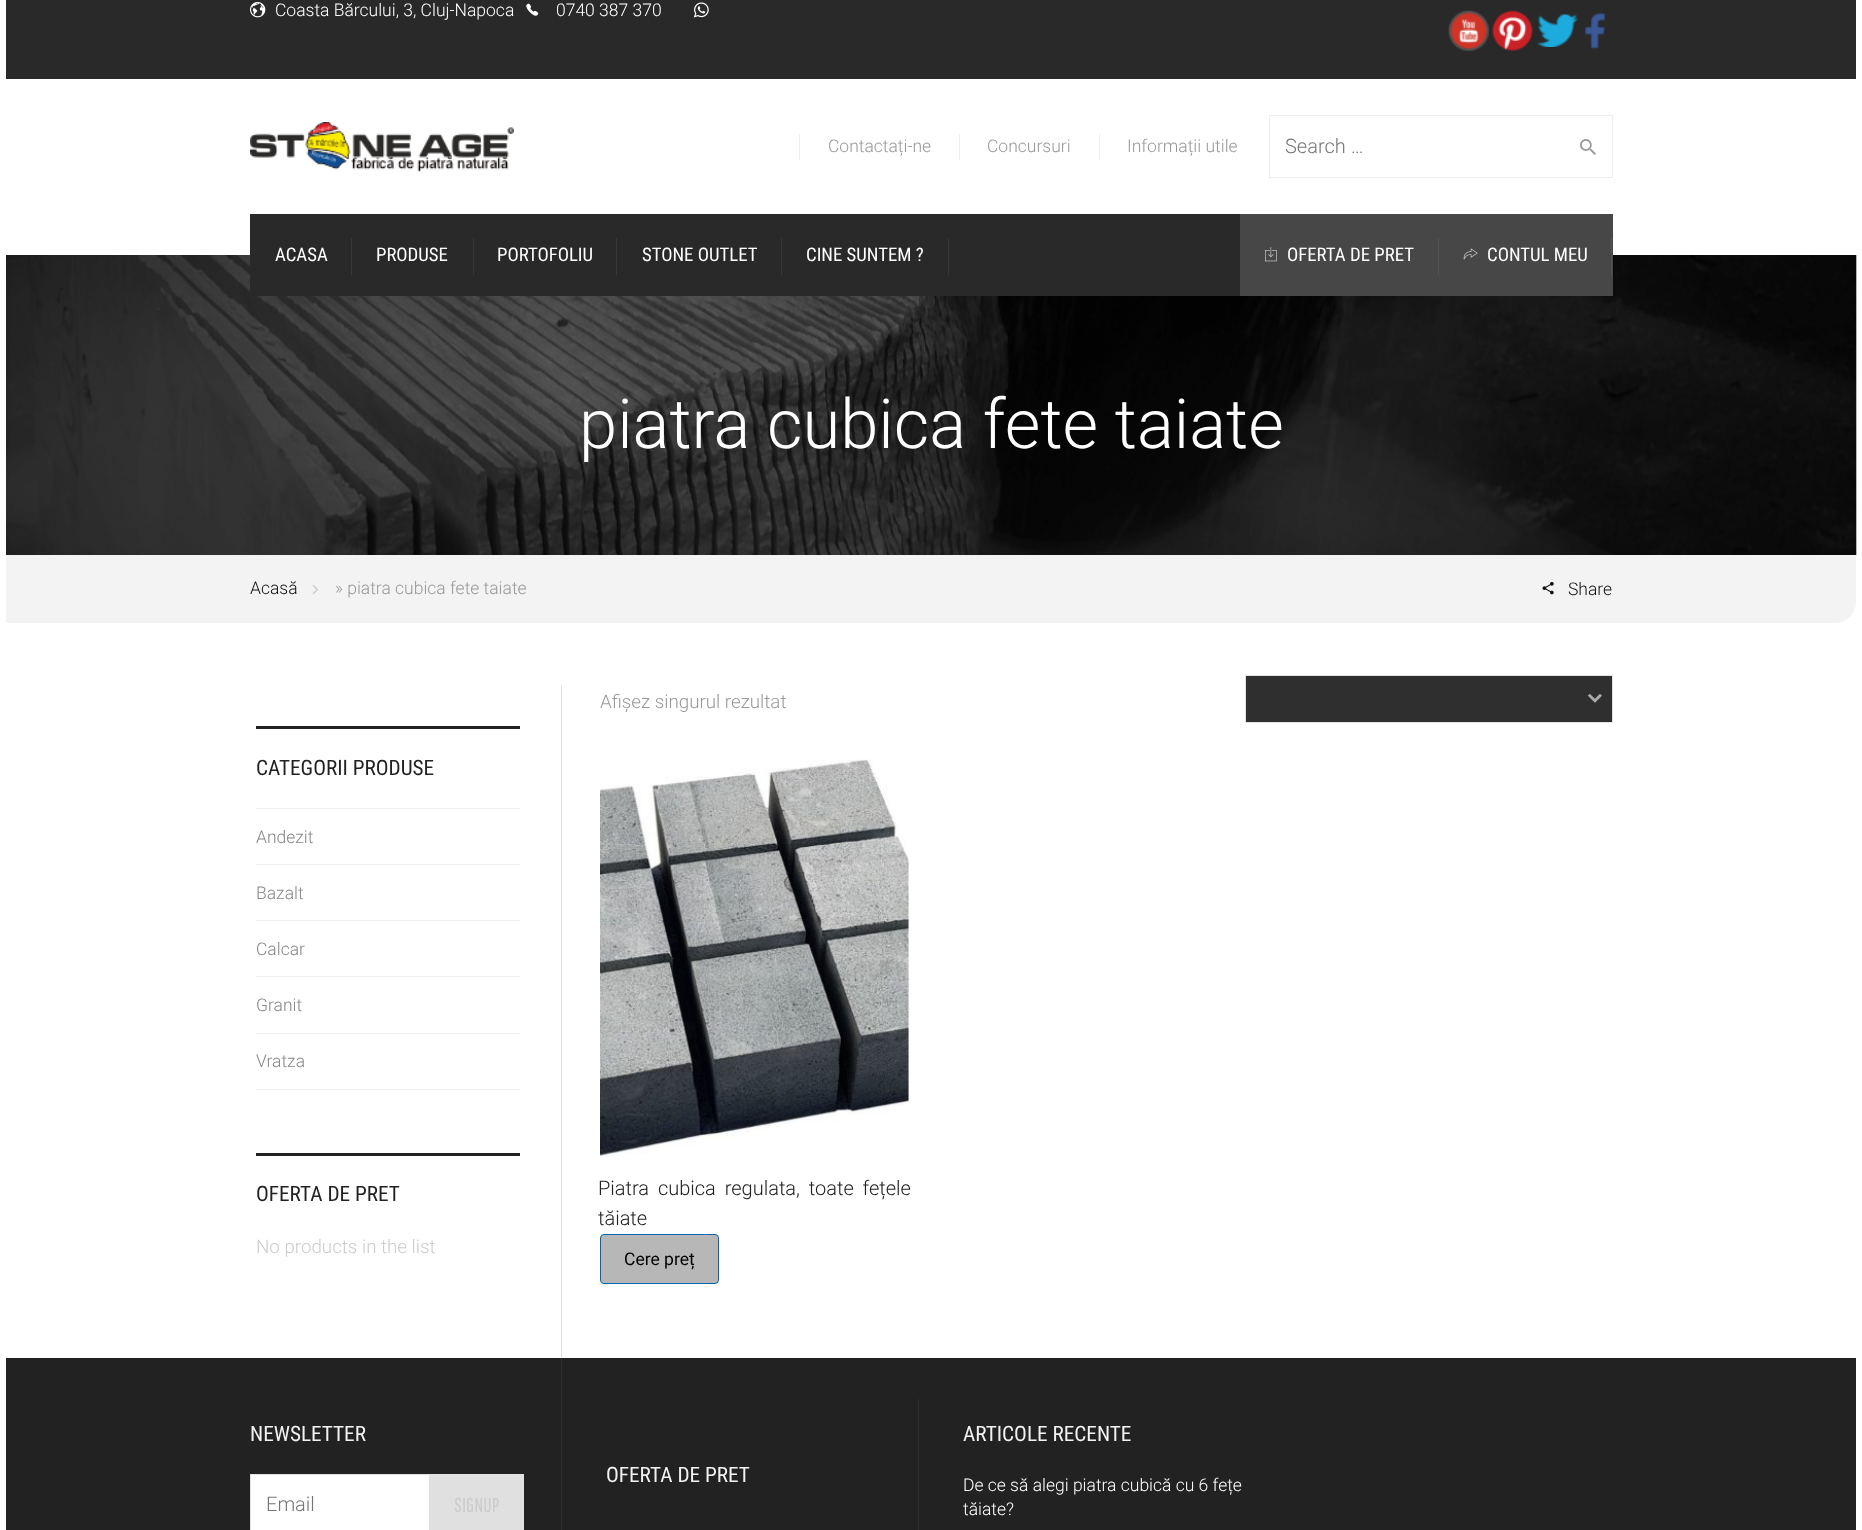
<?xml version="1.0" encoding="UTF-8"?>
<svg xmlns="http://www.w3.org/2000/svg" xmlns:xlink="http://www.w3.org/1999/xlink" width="1862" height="1530">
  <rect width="100%" height="100%" fill="#ffffff" />
  <rect x="6" width="1850" height="79" fill="#292929" />
  <image x="250" y="2" width="16" height="16" xlink:href="image1.png" />
  <image x="526" y="3" width="13" height="13" xlink:href="image2.png" />
  <image x="693" y="2" width="16" height="16" xlink:href="image3.png" />
  <image x="1448" y="10" width="41" height="41" xlink:href="image4.png" />
  <image x="1492" y="10" width="41" height="41" xlink:href="image5.png" />
  <image x="1537" y="14" width="41" height="33" xlink:href="image6.png" />
  <image x="1585" y="13" width="21" height="36" xlink:href="image7.png" />
  <image x="250" y="122" width="264" height="50" xlink:href="image8.png" />
  <rect x="799" y="134" width="1" height="26" fill="#eeeeee" />
  <rect x="959" y="134" width="1" height="26" fill="#eeeeee" />
  <rect x="1099" y="134" width="1" height="26" fill="#eeeeee" />
  <rect x="1269.5" y="115.5" width="343" height="62" fill="none" stroke="#eeeeee" />
  <image x="1580" y="139" width="16" height="16" xlink:href="image9.png" />
  <path d="M 6 534 h 1850 v 68 c 0 11.5 -9.5 21 -21 21 h -1829 z" fill="#f3f3f3" />
  <image x="6" y="255" width="1851" height="300" xlink:href="image12.png" />
  <rect x="250" y="214" width="990" height="82" fill="#292929" />
  <rect x="351" y="238" width="1" height="37" fill="#383838" />
  <rect x="473" y="238" width="1" height="37" fill="#383838" />
  <rect x="616" y="238" width="1" height="37" fill="#383838" />
  <rect x="781" y="238" width="1" height="37" fill="#383838" />
  <rect x="948" y="238" width="1" height="37" fill="#383838" />
  <rect x="1240" y="214" width="373" height="82" fill="#474747" />
  <image x="1265" y="247" width="12" height="15" xlink:href="image10.png" />
  <rect x="1438" y="238" width="1" height="37" fill="#545454" />
  <image x="1463" y="248" width="15" height="12" xlink:href="image11.png" />
  <rect x="1611" y="238" width="1" height="37" fill="#545454" />
  <image x="312" y="584" width="6" height="11" xlink:href="image13.png" />
  <image x="1542" y="581" width="12" height="14" xlink:href="image14.png" />
  <rect x="561" y="685" width="1" height="673" fill="#e2e2e2" />
  <rect x="256" y="726" width="264" height="3" fill="#222222" />
  <rect x="256" y="1089" width="264" height="1" fill="#eeeeee" />
  <rect x="256" y="808" width="264" height="1" fill="#eeeeee" />
  <rect x="256" y="864" width="264" height="1" fill="#eeeeee" />
  <rect x="256" y="920" width="264" height="1" fill="#eeeeee" />
  <rect x="256" y="976" width="264" height="1" fill="#eeeeee" />
  <rect x="256" y="1033" width="264" height="1" fill="#eeeeee" />
  <rect x="256" y="1153" width="264" height="3" fill="#222222" />
  <rect x="1246" y="676" width="366" height="46" fill="#2f2f2f" />
  <image x="1587" y="693" width="15" height="10" xlink:href="image15.png" />
  <rect x="1245.5" y="675.5" width="367" height="47" fill="none" stroke="#e2e2e2" />
  <image x="600" y="759" width="309" height="398" xlink:href="image16.png" />
  <rect x="600.5" y="1234.5" width="118" height="49" rx="3.5" fill="#b7b7b7" stroke="#0066b4" />
  <rect x="6" y="1358" width="1850" height="172" fill="#222222" />
  <rect x="561" y="1358" width="1" height="172" fill="#2f2f2f" />
  <rect x="251" y="1475" width="178" height="55" fill="#ffffff" />
  <rect x="250.5" y="1474.5" width="273" height="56" fill="none" stroke="#e2e2e2" />
  <rect x="429" y="1475" width="94" height="55" fill="#e0e0e0" />
  <rect x="918" y="1399" width="1" height="131" fill="#2f2f2f" />
  <text x="275" y="16" style="font-family: Roboto; font-size: 17.5px; font-weight: 300; fill: #ffffff">Coasta Bărcului, 3, Cluj-Napoca</text>
  <text x="556" y="16" style="font-family: Roboto; font-size: 17.5px; font-weight: 300; fill: #ffffff">0740 387 370</text>
  <text x="828" y="152" style="font-family: Roboto; font-size: 17.5px; font-weight: 300; fill: #999999">Contactați-ne</text>
  <text x="987" y="152" style="font-family: Roboto; font-size: 17.5px; font-weight: 300; fill: #999999">Concursuri</text>
  <text x="1127" y="152" style="font-family: Roboto; font-size: 17.5px; font-weight: 300; fill: #999999">Informații utile</text>
  <text x="1285" y="153" style="font-family: Roboto; font-size: 20px; font-weight: 300; fill: #757575">Search …</text>
  <text x="275" y="261" style="font-family: Roboto Condensed; font-size: 18.75px; fill: #ffffff">ACASA</text>
  <text x="376" y="261" style="font-family: Roboto Condensed; font-size: 18.75px; fill: #ffffff">PRODUSE</text>
  <text x="497" y="261" style="font-family: Roboto Condensed; font-size: 18.75px; fill: #ffffff">PORTOFOLIU</text>
  <text x="642" y="261" style="font-family: Roboto Condensed; font-size: 18.75px; fill: #ffffff">STONE OUTLET</text>
  <text x="806" y="261" style="font-family: Roboto Condensed; font-size: 18.75px; fill: #ffffff">CINE SUNTEM ?</text>
  <text x="1287" y="261" style="font-family: Roboto Condensed; font-size: 18.75px; fill: #ffffff">OFERTA DE PRET</text>
  <text x="1487" y="261" style="font-family: Roboto Condensed; font-size: 18.75px; fill: #ffffff">CONTUL MEU</text>
  <text x="579" y="448" style="font-family: Roboto; font-size: 68.75px; font-weight: 300; fill: #ffffff">piatra cubica fete taiate</text>
  <text x="250" y="594" style="font-family: Roboto; font-size: 17.5px; font-weight: 300; fill: #111111">Acasă</text>
  <text x="335" y="594" style="font-family: Roboto; font-size: 17.5px; font-weight: 300; fill: #999999">» piatra cubica fete taiate</text>
  <text x="1568" y="595" style="font-family: Roboto; font-size: 17.5px; font-weight: 300; fill: #111111">Share</text>
  <text x="256" y="775" style="font-family: Roboto Condensed; font-size: 21.25px; fill: #222222">CATEGORII PRODUSE</text>
  <text x="256" y="843" style="font-family: Roboto; font-size: 17.5px; font-weight: 300; fill: #888888">Andezit</text>
  <text x="256" y="899" style="font-family: Roboto; font-size: 17.5px; font-weight: 300; fill: #888888">Bazalt</text>
  <text x="256" y="955" style="font-family: Roboto; font-size: 17.5px; font-weight: 300; fill: #888888">Calcar</text>
  <text x="256" y="1011" style="font-family: Roboto; font-size: 17.5px; font-weight: 300; fill: #888888">Granit</text>
  <text x="256" y="1067" style="font-family: Roboto; font-size: 17.5px; font-weight: 300; fill: #888888">Vratza</text>
  <text x="256" y="1201" style="font-family: Roboto Condensed; font-size: 21.25px; fill: #222222">OFERTA DE PRET</text>
  <text x="256" y="1253" style="font-family: Roboto; font-size: 18.75px; font-weight: 300; fill: #cccccc">No products in the list</text>
  <text x="600" y="708" style="font-family: Roboto; font-size: 18.75px; font-weight: 300; fill: #999999">Afișez singurul rezultat</text>
  <text x="598" y="1195" word-spacing="4" style="font-family: Roboto; font-size: 20px; font-weight: 300; fill: #222222">Piatra cubica regulata, toate fețele</text>
  <text x="598" y="1225" style="font-family: Roboto; font-size: 20px; font-weight: 300; fill: #222222">tăiate</text>
  <text x="624" y="1265" style="font-family: Roboto; font-size: 17.5px; fill: #000000">Cere preț</text>
  <text x="250" y="1441" style="font-family: Roboto Condensed; font-size: 21.25px; fill: #f2f2f2">NEWSLETTER</text>
  <text x="266" y="1511" style="font-family: Roboto; font-size: 20px; font-weight: 300; fill: #757575">Email</text>
  <text x="454" y="1512" style="font-family: Pathway Gothic One; font-size: 20px; fill: #cccccc">SIGNUP</text>
  <text x="606" y="1482" style="font-family: Roboto Condensed; font-size: 21.25px; fill: #f2f2f2">OFERTA DE PRET</text>
  <text x="963" y="1441" style="font-family: Roboto Condensed; font-size: 21.25px; fill: #f2f2f2">ARTICOLE RECENTE</text>
  <text x="963" y="1491" style="font-family: Roboto; font-size: 17.5px; font-weight: 300; fill: #ffffff">De ce să alegi piatra cubică cu 6 fețe</text>
  <text x="963" y="1515" style="font-family: Roboto; font-size: 17.5px; font-weight: 300; fill: #ffffff">tăiate?</text>
</svg>
